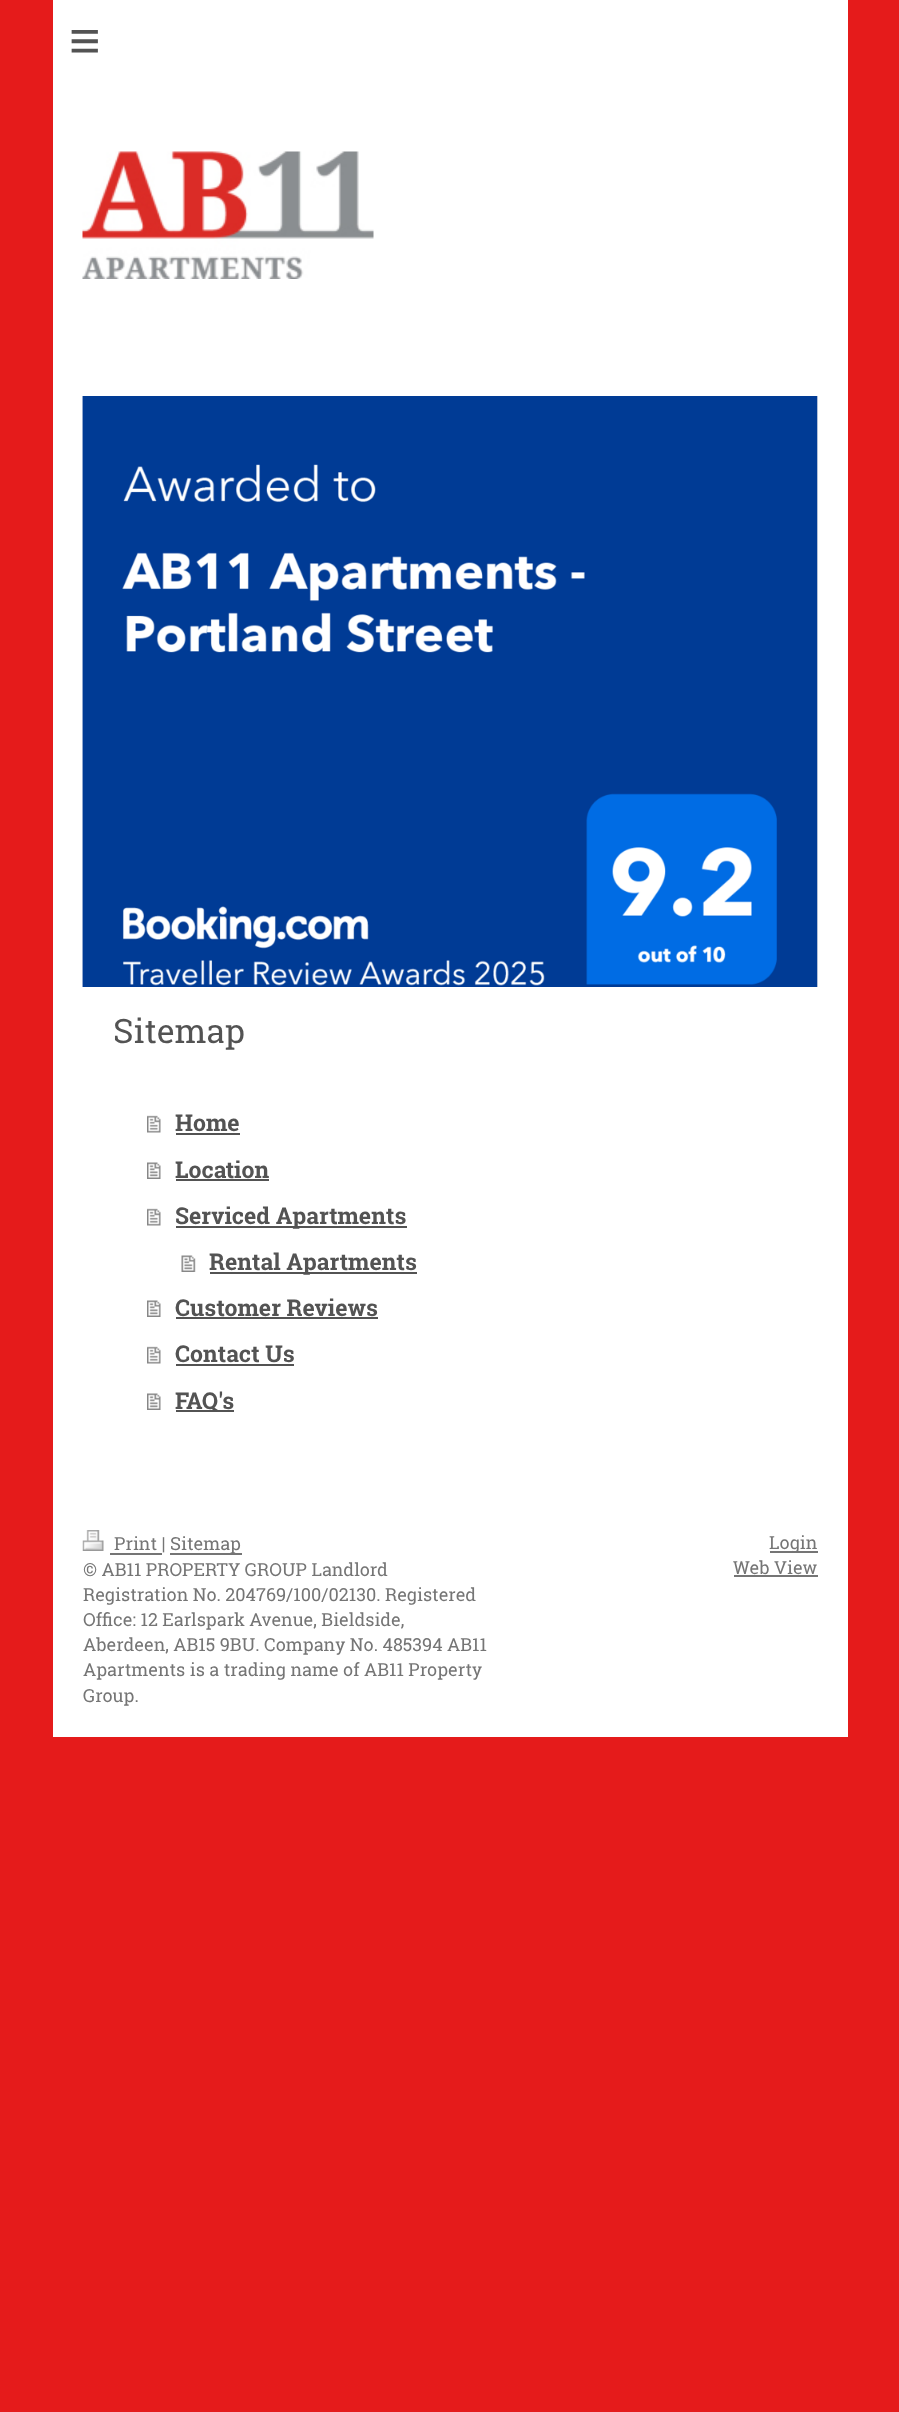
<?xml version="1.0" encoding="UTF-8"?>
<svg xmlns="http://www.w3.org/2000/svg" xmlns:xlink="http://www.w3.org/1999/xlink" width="899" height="2412">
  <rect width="100%" height="100%" fill="#e51b1b" />
  <rect x="53" width="795" height="1737" fill="#ffffff" />
  <image x="82" y="151" width="292" height="128" xlink:href="image1.png" />
  <image x="82" y="396" width="1" height="591" xlink:href="image2.png" />
  <rect x="817" y="396" width="1" height="591" fill="#eeeeee" />
  <image x="82" y="396" width="736" height="591" xlink:href="image3.png" />
  <image x="147" y="1115" width="14" height="18" xlink:href="image4.png" />
  <rect x="176" y="1133" width="64" height="2" fill="#535353" />
  <image x="147" y="1162" width="14" height="17" xlink:href="image5.png" />
  <rect x="176" y="1179" width="93" height="2" fill="#535353" />
  <image x="147" y="1208" width="14" height="18" xlink:href="image4.png" />
  <rect x="176" y="1226" width="231" height="2" fill="#535353" />
  <image x="181" y="1255" width="15" height="17" xlink:href="image6.png" />
  <rect x="210" y="1272" width="207" height="2" fill="#535353" />
  <image x="147" y="1300" width="14" height="17" xlink:href="image5.png" />
  <rect x="176" y="1317" width="202" height="2" fill="#535353" />
  <image x="147" y="1346" width="14" height="18" xlink:href="image4.png" />
  <rect x="176" y="1364" width="118" height="2" fill="#535353" />
  <image x="147" y="1393" width="14" height="17" xlink:href="image5.png" />
  <rect x="176" y="1410" width="58" height="2" fill="#535353" />
  <image x="82" y="1530" width="22" height="21" xlink:href="image7.png" />
  <rect x="110" y="1553" width="52" height="2" fill="#757575" />
  <rect x="170" y="1553" width="72" height="2" fill="#757575" />
  <rect x="770" y="1551" width="48" height="2" fill="#757575" />
  <rect x="734" y="1575" width="84" height="2" fill="#757575" />
  <text x="69" y="59" style="font-family: Liberation Sans; font-size: 54px; letter-spacing: 16px; fill: #535353">≡</text>
  <text x="113" y="1043" style="font-family: Roboto Slab; font-size: 33.5px; fill: #535353">Sitemap</text>
  <text x="175" y="1131" style="font-family: Roboto Slab; font-size: 23.1px; font-weight: bold; fill: #535353">Home</text>
  <text x="175" y="1178" style="font-family: Roboto Slab; font-size: 23.1px; font-weight: bold; fill: #535353">Location</text>
  <text x="175" y="1224" style="font-family: Roboto Slab; font-size: 23.1px; font-weight: bold; fill: #535353">Serviced Apartments</text>
  <text x="209" y="1270" style="font-family: Roboto Slab; font-size: 23.1px; font-weight: bold; fill: #535353">Rental Apartments</text>
  <text x="175" y="1316" style="font-family: Roboto Slab; font-size: 23.1px; font-weight: bold; fill: #535353">Customer Reviews</text>
  <text x="175" y="1362" style="font-family: Roboto Slab; font-size: 23.1px; font-weight: bold; fill: #535353">Contact Us</text>
  <text x="175" y="1409" style="font-family: Roboto Slab; font-size: 23.1px; font-weight: bold; fill: #535353">FAQ's</text>
  <text x="114" y="1550" style="font-family: Roboto Slab; font-size: 18px; fill: #757575">Print |</text>
  <text x="170" y="1550" style="font-family: Roboto Slab; font-size: 18px; fill: #757575">Sitemap</text>
  <text x="83" y="1576" style="font-family: Roboto Slab; font-size: 18px; fill: #757575">© AB11 PROPERTY GROUP Landlord</text>
  <text x="83" y="1601" style="font-family: Roboto Slab; font-size: 18px; fill: #757575">Registration No. 204769/100/02130. Registered</text>
  <text x="83" y="1626" style="font-family: Roboto Slab; font-size: 18px; fill: #757575">Office: 12 Earlspark Avenue, Bieldside,</text>
  <text x="83" y="1651" style="font-family: Roboto Slab; font-size: 18px; fill: #757575">Aberdeen, AB15 9BU. Company No. 485394 AB11</text>
  <text x="83" y="1676" style="font-family: Roboto Slab; font-size: 18px; fill: #757575">Apartments is a trading name of AB11 Property</text>
  <text x="83" y="1702" style="font-family: Roboto Slab; font-size: 18px; fill: #757575">Group.</text>
  <text x="769" y="1549" style="font-family: Roboto Slab; font-size: 18px; fill: #757575">Login</text>
  <text x="733" y="1574" style="font-family: Roboto Slab; font-size: 18px; fill: #757575">Web View</text>
</svg>
